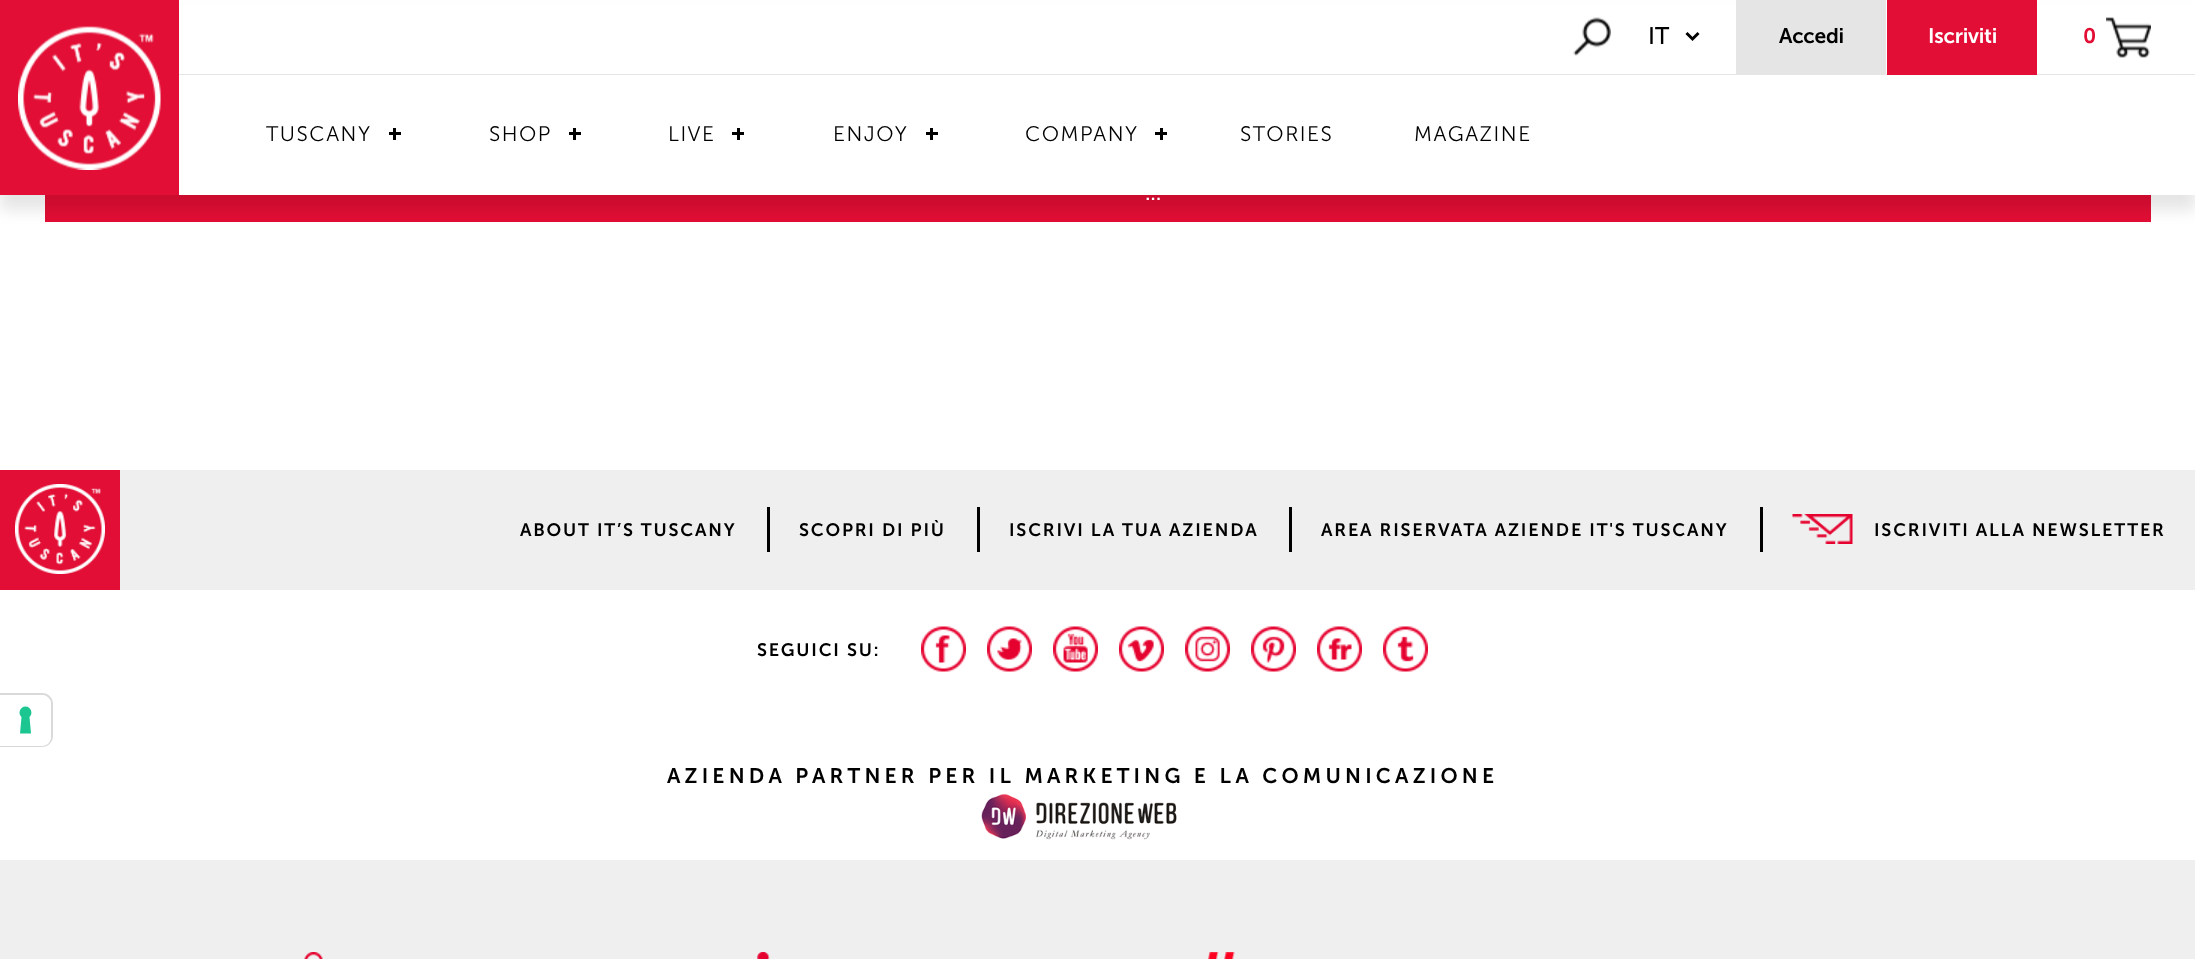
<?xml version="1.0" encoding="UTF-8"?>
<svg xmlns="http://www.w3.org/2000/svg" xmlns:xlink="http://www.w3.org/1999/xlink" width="2195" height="959">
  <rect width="100%" height="100%" fill="#ffffff" />
  <rect x="45" y="195" width="2106" height="27" fill="#e20e35" />
  <rect y="15" width="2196" height="195" fill="#000000" fill-opacity="0.1" filter="blur(7.5px)" />
  <rect width="179" height="195" fill="#e20e35" />
  <image x="18" y="26" width="143" height="144" xlink:href="image1.png" />
  <rect x="179" y="5" width="2016" height="69" fill="#ffffff" />
  <rect x="2186" y="74" width="9" height="1" fill="#e5e5e5" />
  <image x="1573" y="17" width="38" height="39" xlink:href="image2.png" />
  <path d="M 1686.5 33 l 6 6 l 6 -6" fill="none" stroke="#000000" stroke-width="3" />
  <rect x="1736" width="150" height="74" fill="#e5e5e5" />
  <rect x="1887" width="150" height="75" fill="#e20e35" />
  <image x="2106" y="17" width="45" height="41" xlink:href="image3.png" />
  <rect x="179" y="75" width="2016" height="120" fill="#ffffff" />
  <rect x="393" y="128" width="3" height="12" fill="#000000" />
  <rect x="389" y="132" width="12" height="3" fill="#000000" />
  <rect x="573" y="128" width="3" height="12" fill="#000000" />
  <rect x="569" y="132" width="12" height="3" fill="#000000" />
  <rect x="737" y="128" width="3" height="12" fill="#000000" />
  <rect x="732" y="132" width="12" height="3" fill="#000000" />
  <rect x="930" y="128" width="3" height="12" fill="#000000" />
  <rect x="926" y="132" width="12" height="3" fill="#000000" />
  <rect x="1160" y="128" width="3" height="12" fill="#000000" />
  <rect x="1155" y="132" width="12" height="3" fill="#000000" />
  <path d="M 0 694 h 42 c 5.5 0 10 4.5 10 10 v 32 c 0 5.5 -4.5 10 -10 10 h -42 z" fill="none" stroke="#d9d9d9" stroke-width="2" />
  <path d="M 0 695 h 42 c 5 0 9 4 9 9 v 33 c 0 5 -4 9 -9 9 h -42 z" fill="#ffffff" />
  <path d="M 25.5 706.5 c 5.5 0 8 7 4 10.5 l 1.5 16.5 h -11 l 1.5 -16.5 c -4 -3.5 -1.5 -10.5 4 -10.5 z" fill="#1cc691" fill-rule="evenodd" />
  <rect x="120" y="470" width="2075" height="120" fill="#efefef" />
  <rect y="470" width="120" height="120" fill="#e20e35" />
  <image x="15" y="484" width="90" height="90" xlink:href="image4.png" />
  <rect x="767" y="507" width="3" height="45" fill="#000000" />
  <rect x="977" y="507" width="3" height="45" fill="#000000" />
  <rect x="1289" y="507" width="3" height="45" fill="#000000" />
  <rect x="1760" y="507" width="3" height="45" fill="#000000" />
  <image x="1792" y="514" width="61" height="30" xlink:href="image5.png" />
  <image x="921" y="626" width="45" height="46" xlink:href="image6.png" />
  <image x="987" y="626" width="45" height="46" xlink:href="image7.png" />
  <image x="1053" y="626" width="45" height="46" xlink:href="image8.png" />
  <image x="1119" y="626" width="45" height="46" xlink:href="image9.png" />
  <image x="1185" y="626" width="45" height="46" xlink:href="image10.png" />
  <image x="1251" y="626" width="45" height="46" xlink:href="image11.png" />
  <image x="1317" y="626" width="45" height="46" xlink:href="image12.png" />
  <image x="1383" y="626" width="45" height="46" xlink:href="image13.png" />
  <image x="981" y="793" width="196" height="47" xlink:href="image14.png" />
  <rect y="860" width="2195" height="99" fill="#efefef" />
  <image x="304" y="952" width="19" height="7" xlink:href="image15.png" />
  <image x="757" y="952" width="13" height="7" xlink:href="image16.png" />
  <image x="1208" y="952" width="27" height="7" xlink:href="image17.png" />
  <text x="1648" y="44" style="font-family: 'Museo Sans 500'; font-size: 24px; fill: #000000">IT</text>
  <text x="1779" y="43" style="font-family: 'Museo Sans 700'; font-size: 21px; font-weight: 600; letter-spacing: -0.25px; fill: #000000">Accedi</text>
  <text x="1928" y="43" style="font-family: 'Museo Sans 700'; font-size: 21px; font-weight: 600; letter-spacing: -0.25px; fill: #ffffff">Iscriviti</text>
  <text x="2083" y="43" style="font-family: 'Museo Sans 700'; font-size: 21px; font-weight: 600; letter-spacing: -0.25px; fill: #e20e35">0</text>
  <text x="266" y="141" style="font-family: 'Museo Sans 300'; font-size: 21px; font-weight: 300; letter-spacing: 1.5px; fill: #000000">TUSCANY</text>
  <text x="489" y="141" style="font-family: 'Museo Sans 300'; font-size: 21px; font-weight: 300; letter-spacing: 1.5px; fill: #000000">SHOP</text>
  <text x="668" y="141" style="font-family: 'Museo Sans 300'; font-size: 21px; font-weight: 300; letter-spacing: 1.5px; fill: #000000">LIVE</text>
  <text x="833" y="141" style="font-family: 'Museo Sans 300'; font-size: 21px; font-weight: 300; letter-spacing: 1.5px; fill: #000000">ENJOY</text>
  <text x="1025" y="141" style="font-family: 'Museo Sans 300'; font-size: 21px; font-weight: 300; letter-spacing: 1.5px; fill: #000000">COMPANY</text>
  <text x="1240" y="141" style="font-family: 'Museo Sans 300'; font-size: 21px; font-weight: 300; letter-spacing: 1.5px; fill: #000000">STORIES</text>
  <text x="1414" y="141" style="font-family: 'Museo Sans 300'; font-size: 21px; font-weight: 300; letter-spacing: 1.5px; fill: #000000">MAGAZINE</text>
  <text x="1145" y="200" style="font-family: 'Museo Sans 500'; font-size: 22px; letter-spacing: -0.25px; fill: #ffffff">...</text>
  <text x="520" y="536" style="font-family: 'Museo Sans 700'; font-size: 18px; font-weight: 600; letter-spacing: 1.8px; fill: #000000">ABOUT IT’S TUSCANY</text>
  <text x="799" y="536" style="font-family: 'Museo Sans 700'; font-size: 18px; font-weight: 600; letter-spacing: 1.8px; fill: #000000">SCOPRI DI PIÙ</text>
  <text x="1009" y="536" style="font-family: 'Museo Sans 700'; font-size: 18px; font-weight: 600; letter-spacing: 1.8px; fill: #000000">ISCRIVI LA TUA AZIENDA</text>
  <text x="1321" y="536" style="font-family: 'Museo Sans 700'; font-size: 18px; font-weight: 600; letter-spacing: 1.8px; fill: #000000">AREA RISERVATA AZIENDE IT'S TUSCANY</text>
  <text x="1874" y="536" style="font-family: 'Museo Sans 700'; font-size: 18px; font-weight: 600; letter-spacing: 1.8px; fill: #000000">ISCRIVITI ALLA NEWSLETTER</text>
  <text x="757" y="656" style="font-family: 'Museo Sans 700'; font-size: 18px; font-weight: 600; letter-spacing: 1.8px; fill: #000000">SEGUICI SU:</text>
  <text x="667" y="783" style="font-family: 'Museo Sans 700'; font-size: 21px; font-weight: 600; letter-spacing: 4.2px; fill: #000000">AZIENDA PARTNER PER IL MARKETING E LA COMUNICAZIONE</text>
</svg>
